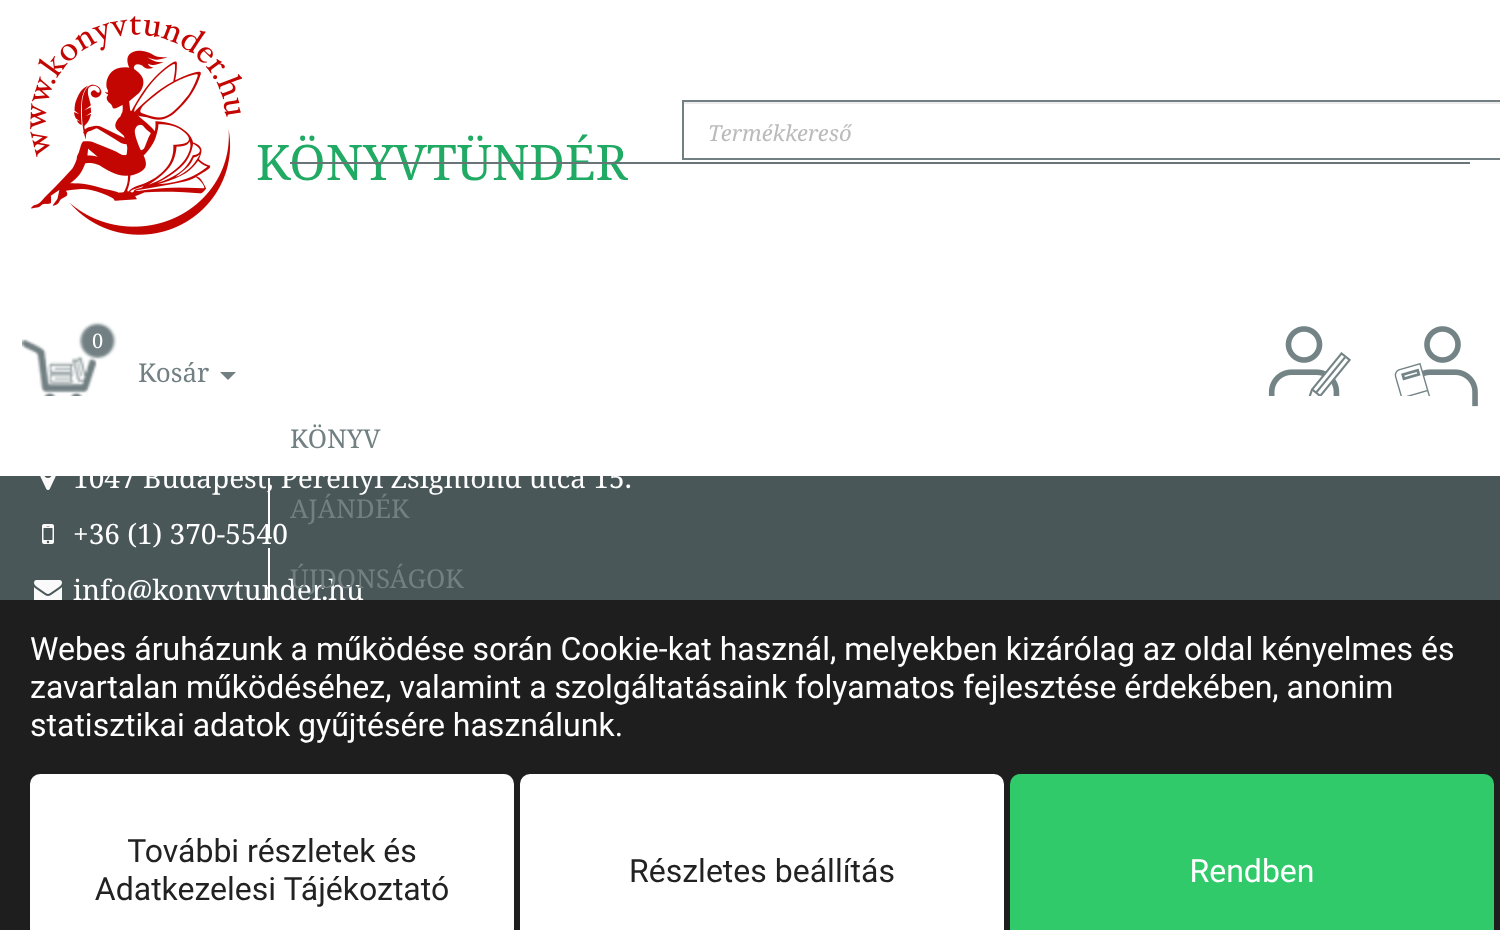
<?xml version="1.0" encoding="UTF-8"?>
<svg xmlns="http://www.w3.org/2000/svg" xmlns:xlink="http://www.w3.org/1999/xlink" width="1500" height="930">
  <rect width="100%" height="100%" fill="#4a5759" />
  <rect width="1500" height="476" fill="#ffffff" />
  <image x="30" y="16" width="212" height="219" xlink:href="image1.png" />
  <rect x="684" y="102" width="816" height="2" fill="#ececec" />
  <rect x="682" y="100" width="818" height="2" fill="#728083" />
  <rect x="682" y="158" width="818" height="2" fill="#728083" />
  <rect x="682" y="100" width="2" height="60" fill="#728083" />
  <image x="22" y="321" width="95" height="75" xlink:href="image2.png" />
  <path d="M 220 372 h 16 l -8 8 z" fill="#728083" />
  <image x="1268" y="326" width="83" height="70" xlink:href="image3.png" />
  <image x="1394" y="326" width="84" height="81" xlink:href="image4.png" />
  <rect x="1400" y="396" width="32" height="11" fill="#ffffff" />
  <rect x="268" y="478" width="2" height="60" fill="#ffffff" />
  <rect x="268" y="548" width="2" height="60" fill="#ffffff" />
  <image x="40" y="476" width="16" height="14" xlink:href="image5.png" />
  <image x="42" y="524" width="12" height="20" xlink:href="image6.png" />
  <image x="34" y="580" width="28" height="20" xlink:href="image7.png" />
  <text x="256" y="180" style="font-family: Noto Serif; font-size: 49px; fill: #20aa63">KÖNYVTÜNDÉR</text>
  <text x="708" y="141" style="font-family: Noto Serif; font-size: 22px; font-style: italic; fill: #bbbbbb">Termékkereső</text>
  <text x="92" y="348" style="font-family: Noto Serif; font-size: 20px; fill: #ffffff">0</text>
  <text x="138" y="382" style="font-family: Noto Serif; font-size: 26px; fill: #728083">Kosár</text>
  <rect x="290" y="162" width="1180" height="2" fill="#6a7477" />
  <text x="290" y="448" style="font-family: Noto Serif; font-size: 26px; fill: #728083">KÖNYV</text>
  <text x="290" y="518" style="font-family: Noto Serif; font-size: 26px; fill: #728083">AJÁNDÉK</text>
  <text x="73" y="488" style="font-family: Noto Serif; font-size: 28px; fill: #ffffff">1047 Budapest, Perényi Zsigmond utca 15.</text>
  <text x="73" y="544" style="font-family: Noto Serif; font-size: 28px; fill: #ffffff">+36 (1) 370-5540</text>
  <text x="73" y="600" style="font-family: Noto Serif; font-size: 28px; fill: #ffffff">info@konyvtunder.hu</text>
  <text x="290" y="588" style="font-family: Noto Serif; font-size: 26px; fill: #728083">ÚJDONSÁGOK</text>
  <rect y="600" width="1500" height="330" fill="#1e1e1e" />
  <image x="30" y="636" width="1464" height="294" xlink:href="image8.png" />
</svg>
